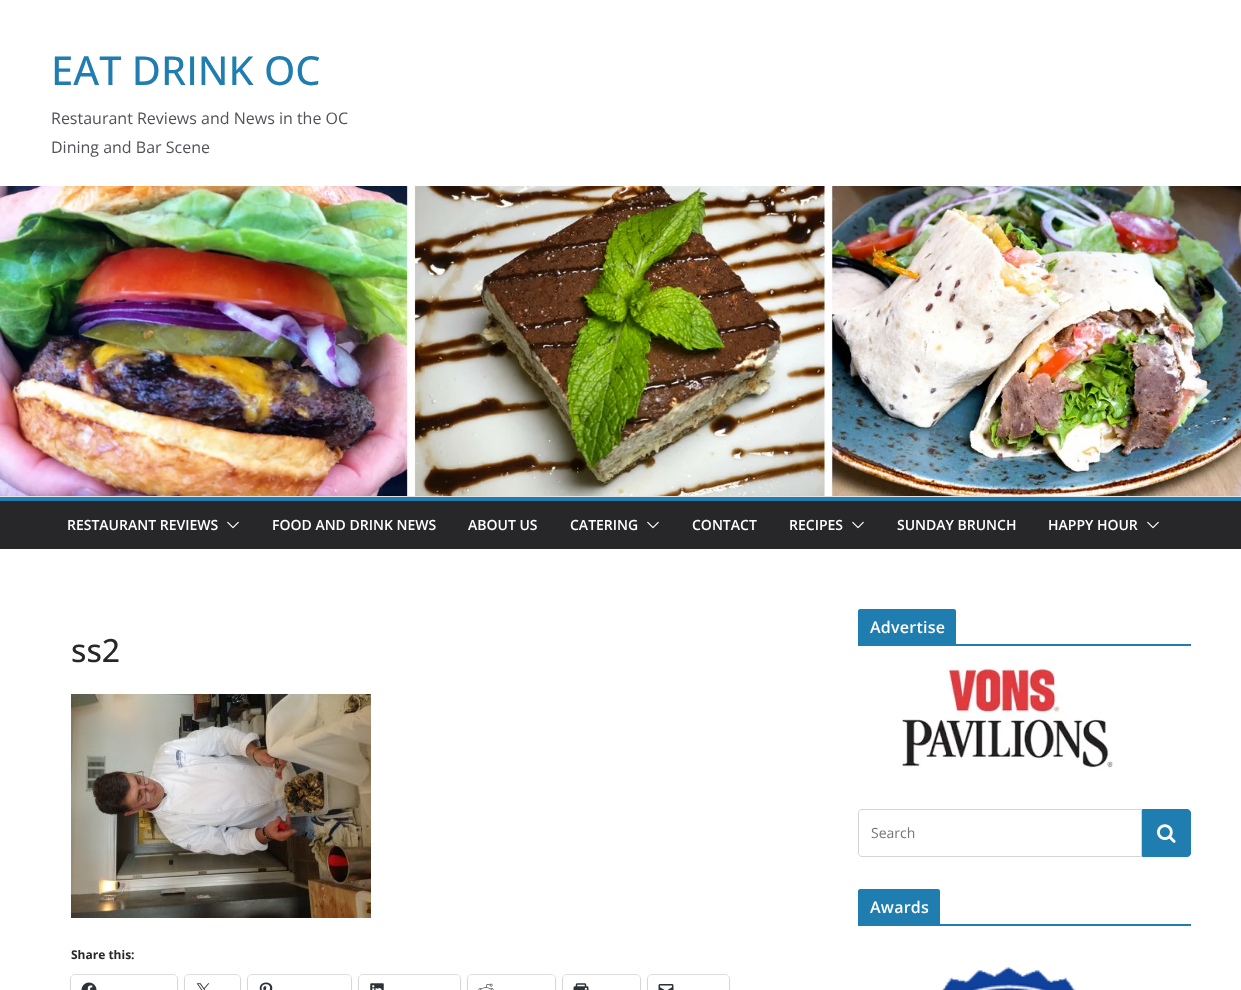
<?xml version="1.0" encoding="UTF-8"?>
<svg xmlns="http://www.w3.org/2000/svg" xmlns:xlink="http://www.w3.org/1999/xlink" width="1241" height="990">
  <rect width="100%" height="100%" fill="#ffffff" />
  <image x="0" y="186" width="1241" height="310" xlink:href="image1.png" />
  <rect y="496" width="1241" height="1" fill="#e4e4e7" />
  <rect y="501" width="1241" height="48" fill="#27272a" />
  <rect y="497" width="1241" height="4" fill="#207daf" />
  <image x="227" y="521" width="12" height="8" xlink:href="image2.png" />
  <image x="647" y="521" width="12" height="8" xlink:href="image2.png" />
  <image x="852" y="521" width="12" height="8" xlink:href="image2.png" />
  <image x="1147" y="521" width="12" height="8" xlink:href="image2.png" />
  <image x="71" y="694" width="300" height="224" xlink:href="image3.png" />
  <rect x="70.5" y="974.5" width="107" height="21" rx="4.5" fill="none" stroke="#e0e0e0" />
  <rect x="71" y="976" width="106" height="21" rx="4" fill="#000000" fill-opacity="0.12" filter="blur(1px)" />
  <rect x="71" y="975" width="106" height="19" rx="4" fill="#ffffff" />
  <image x="81" y="982" width="16" height="8" xlink:href="image4.png" />
  <rect x="184.5" y="974.5" width="56" height="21" rx="4.5" fill="none" stroke="#e0e0e0" />
  <rect x="185" y="976" width="55" height="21" rx="4" fill="#000000" fill-opacity="0.12" filter="blur(1px)" />
  <rect x="185" y="975" width="55" height="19" rx="4" fill="#ffffff" />
  <image x="196" y="983" width="14" height="7" xlink:href="image5.png" />
  <rect x="247.5" y="974.5" width="104" height="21" rx="4.5" fill="none" stroke="#e0e0e0" />
  <rect x="248" y="976" width="103" height="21" rx="4" fill="#000000" fill-opacity="0.12" filter="blur(1px)" />
  <rect x="248" y="975" width="103" height="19" rx="4" fill="#ffffff" />
  <image x="259" y="982" width="14" height="8" xlink:href="image6.png" />
  <rect x="358.5" y="974.5" width="102" height="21" rx="4.5" fill="none" stroke="#e0e0e0" />
  <rect x="359" y="976" width="101" height="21" rx="4" fill="#000000" fill-opacity="0.12" filter="blur(1px)" />
  <rect x="359" y="975" width="101" height="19" rx="4" fill="#ffffff" />
  <image x="370" y="983" width="14" height="7" xlink:href="image7.png" />
  <rect x="467.5" y="974.5" width="88" height="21" rx="4.5" fill="none" stroke="#e0e0e0" />
  <rect x="468" y="976" width="87" height="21" rx="4" fill="#000000" fill-opacity="0.12" filter="blur(1px)" />
  <rect x="468" y="975" width="87" height="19" rx="4" fill="#ffffff" />
  <image x="478" y="983" width="16" height="7" xlink:href="image8.png" />
  <rect x="562.5" y="974.5" width="78" height="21" rx="4.5" fill="none" stroke="#e0e0e0" />
  <rect x="563" y="976" width="77" height="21" rx="4" fill="#000000" fill-opacity="0.12" filter="blur(1px)" />
  <rect x="563" y="975" width="77" height="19" rx="4" fill="#ffffff" />
  <image x="573" y="983" width="16" height="7" xlink:href="image9.png" />
  <rect x="647.5" y="974.5" width="82" height="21" rx="4.5" fill="none" stroke="#e0e0e0" />
  <rect x="648" y="976" width="81" height="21" rx="4" fill="#000000" fill-opacity="0.12" filter="blur(1px)" />
  <rect x="648" y="975" width="81" height="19" rx="4" fill="#ffffff" />
  <image x="658" y="984" width="16" height="6" xlink:href="image10.png" />
  <rect x="858" y="644" width="333" height="2" fill="#207daf" />
  <path d="M 860 609 h 94 c 1 0 2 1 2 2 v 33 h -98 v -33 c 0 -1 1 -2 2 -2 z" fill="#207daf" />
  <image x="902" y="668" width="212" height="101" xlink:href="image11.png" />
  <path d="M 862 809.5 h 279.5 v 47 h -279.5 c -2 0 -3.5 -1.5 -3.5 -3.5 v -40 c 0 -2 1.5 -3.5 3.5 -3.5 z" fill="none" stroke="#d4d4d8" />
  <path d="M 1142.5 809.5 h 44.5 c 2 0 3.5 1.5 3.5 3.5 v 40 c 0 2 -1.5 3.5 -3.5 3.5 h -44.5 z" fill="#207daf" stroke="#207daf" />
  <image x="1157" y="824" width="19" height="19" xlink:href="image12.png" />
  <rect x="858" y="924" width="333" height="2" fill="#207daf" />
  <path d="M 860 889 h 78 c 1 0 2 1 2 2 v 33 h -82 v -33 c 0 -1 1 -2 2 -2 z" fill="#207daf" />
  <image x="941" y="967" width="135" height="23" xlink:href="image13.png" />
  <text x="51" y="85" style="font-family: Open Sans; font-size: 40px; font-weight: 500; fill: #207daf">EAT DRINK OC</text>
  <text x="51" y="124" style="font-family: Open Sans; font-size: 16px; fill: #52525b">Restaurant Reviews and News in the OC</text>
  <text x="51" y="153" style="font-family: Open Sans; font-size: 16px; fill: #52525b">Dining and Bar Scene</text>
  <text x="67" y="530" style="font-family: Open Sans; font-size: 14px; font-weight: 600; fill: #ffffff">RESTAURANT REVIEWS</text>
  <text x="272" y="530" style="font-family: Open Sans; font-size: 14px; font-weight: 600; fill: #ffffff">FOOD AND DRINK NEWS</text>
  <text x="468" y="530" style="font-family: Open Sans; font-size: 14px; font-weight: 600; fill: #ffffff">ABOUT US</text>
  <text x="570" y="530" style="font-family: Open Sans; font-size: 14px; font-weight: 600; fill: #ffffff">CATERING</text>
  <text x="692" y="530" style="font-family: Open Sans; font-size: 14px; font-weight: 600; fill: #ffffff">CONTACT</text>
  <text x="789" y="530" style="font-family: Open Sans; font-size: 14px; font-weight: 600; fill: #ffffff">RECIPES</text>
  <text x="897" y="530" style="font-family: Open Sans; font-size: 14px; font-weight: 600; fill: #ffffff">SUNDAY BRUNCH</text>
  <text x="1048" y="530" style="font-family: Open Sans; font-size: 14px; font-weight: 600; fill: #ffffff">HAPPY HOUR</text>
  <text x="71" y="662" style="font-family: Open Sans; font-size: 32px; font-weight: 500; fill: #27272a">ss2</text>
  <text x="71" y="959" style="font-family: Open Sans; font-size: 12px; font-weight: bold; fill: #27272a">Share this:</text>
  <text x="870" y="633" style="font-family: Open Sans; font-size: 16px; font-weight: 600; letter-spacing: 0.25px; fill: #ffffff">Advertise</text>
  <text x="871" y="838" style="font-family: Open Sans; font-size: 14px; fill: #757575">Search</text>
  <text x="870" y="913" style="font-family: Open Sans; font-size: 16px; font-weight: 600; letter-spacing: 0.25px; fill: #ffffff">Awards</text>
</svg>
